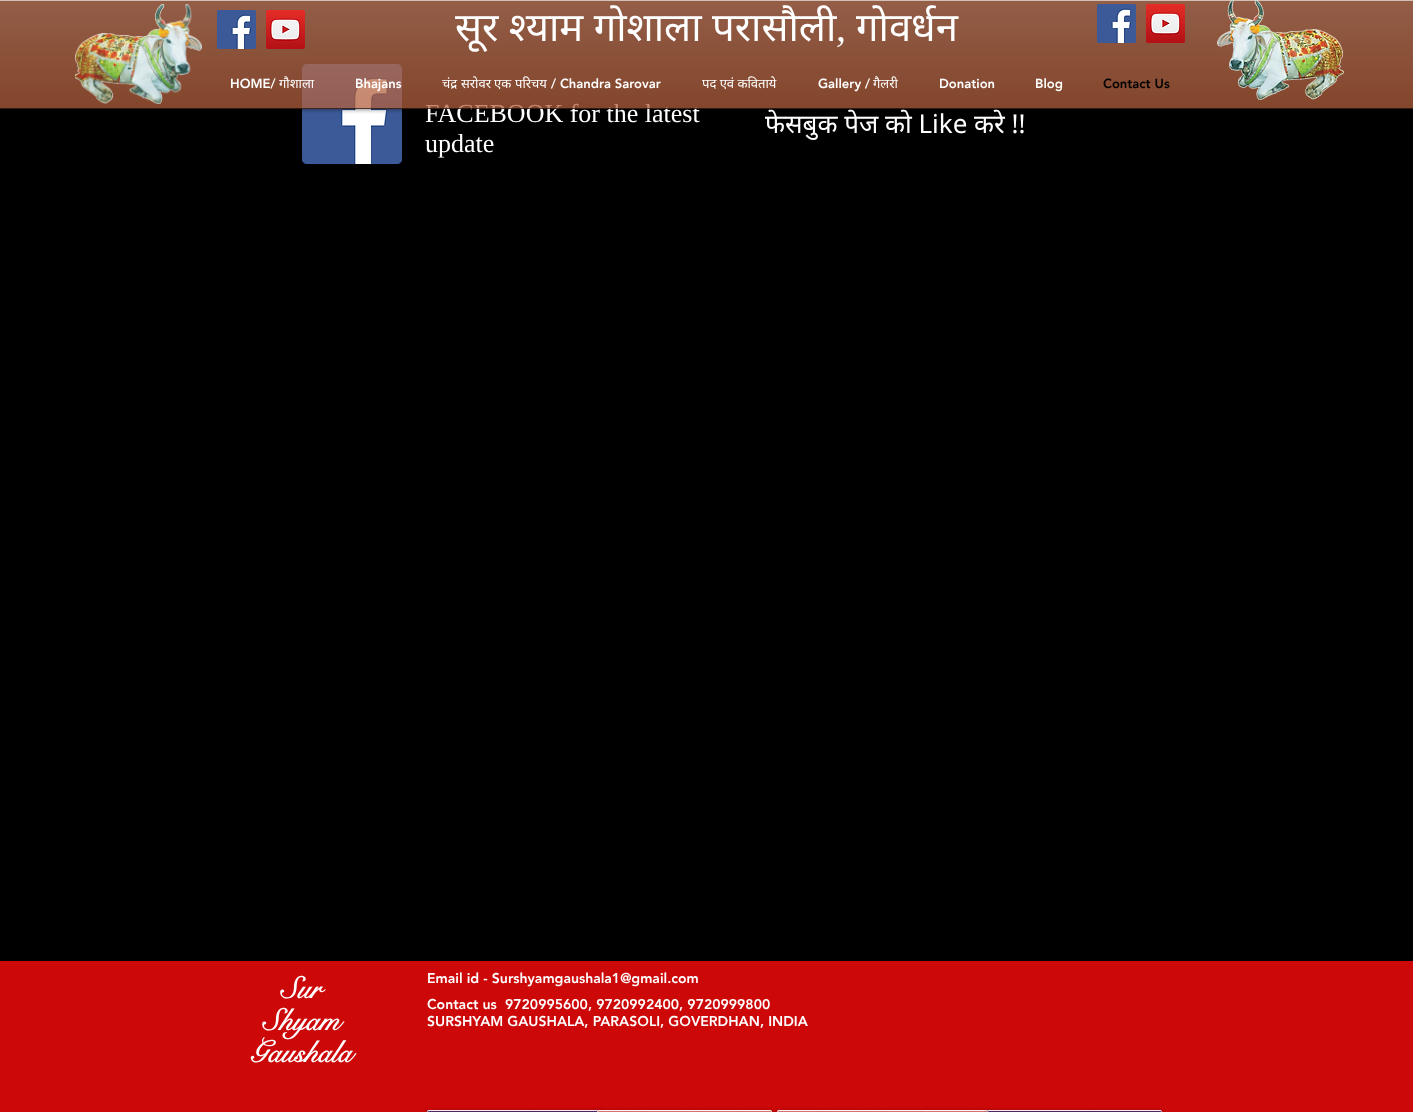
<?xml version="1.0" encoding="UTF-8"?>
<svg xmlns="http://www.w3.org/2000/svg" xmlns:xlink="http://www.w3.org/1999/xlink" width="1413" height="1112">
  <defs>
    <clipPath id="clip1"><rect x="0" y="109" width="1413" height="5" /></clipPath>
  </defs>
  <rect width="100%" height="100%" fill="#000000" />
  <image x="302" y="64" width="100" height="100" xlink:href="image8.png" />
  <g clip-path="url(#clip1)">
    <rect width="1413" height="109" fill="#000000" fill-opacity="0.6" filter="blur(2.5px)" />
  </g>
  <rect width="1413" height="1" fill="#d4bfb6" />
  <rect y="961" width="1413" height="151" fill="#cc0808" />
  <rect x="427" y="1112" width="175" height="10" rx="2" fill="#000000" fill-opacity="0.53" filter="blur(2.5px)" />
  <rect x="427" y="1110" width="175" height="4" rx="2" fill="#532563" />
  <image x="430" y="1110" width="169" height="2" xlink:href="image9.png" />
  <path d="M 429 1111 h 171 c 1 0 2 1 2 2 c 0 -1 0 -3 -2 -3 h -171 c -2 0 -2 2 -2 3 c 0 -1 1 -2 2 -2 z" fill="#ffffff" fill-opacity="0.92" />
  <rect x="597" y="1112" width="175" height="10" rx="2" fill="#000000" fill-opacity="0.53" filter="blur(2.5px)" />
  <rect x="597" y="1110" width="175" height="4" rx="2" fill="#dd7272" />
  <image x="597" y="1110" width="174" height="2" xlink:href="image10.png" />
  <path d="M 599 1111 h 171 c 1 0 2 1 2 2 c 0 -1 0 -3 -2 -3 h -171 c -2 0 -2 2 -2 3 c 0 -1 1 -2 2 -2 z" fill="#ffffff" fill-opacity="0.92" />
  <rect x="777" y="1112" width="212" height="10" rx="2" fill="#000000" fill-opacity="0.53" filter="blur(2.5px)" />
  <rect x="777" y="1110" width="212" height="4" rx="2" fill="#dd7272" />
  <image x="777" y="1110" width="211" height="2" xlink:href="image11.png" />
  <path d="M 779 1111 h 208 c 1 0 2 1 2 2 c 0 -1 0 -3 -2 -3 h -208 c -2 0 -2 2 -2 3 c 0 -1 1 -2 2 -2 z" fill="#ffffff" fill-opacity="0.92" />
  <rect x="987" y="1112" width="175" height="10" rx="2" fill="#000000" fill-opacity="0.53" filter="blur(2.5px)" />
  <rect x="987" y="1110" width="175" height="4" rx="2" fill="#532563" />
  <image x="990" y="1110" width="170" height="2" xlink:href="image12.png" />
  <path d="M 989 1111 h 171 c 1 0 2 1 2 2 c 0 -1 0 -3 -2 -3 h -171 c -2 0 -2 2 -2 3 c 0 -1 1 -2 2 -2 z" fill="#ffffff" fill-opacity="0.92" />
  <text x="425" y="122" style="font-family: Liberation Serif; font-size: 26px; fill: #ffffff">FACEBOOK for the latest</text>
  <rect y="1" width="1413" height="108" fill="#9f370b" fill-opacity="0.69" />
  <image x="0" y="1" width="1413" height="108" xlink:href="image1.png" />
  <image x="1217" y="0" width="127" height="100" xlink:href="image7.png" />
  <image x="1146" y="4" width="39" height="39" xlink:href="image6.png" />
  <image x="1097" y="4" width="39" height="39" xlink:href="image5.png" />
  <image x="266" y="10" width="39" height="39" xlink:href="image4.png" />
  <image x="217" y="10" width="39" height="39" xlink:href="image3.png" />
  <text x="856" y="41" style="font-family: Noto Sans; font-size: 40px; fill: #ffffff">गोवर्धन</text>
  <text x="836" y="41" style="font-family: Liberation Serif; font-size: 40px; fill: #ffffff">,</text>
  <text x="455" y="41" style="font-family: Noto Sans; font-size: 40px; fill: #ffffff">सूर श्याम गोशाला परासौली</text>
  <text x="1103" y="88" style="font-family: 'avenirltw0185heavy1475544'; font-size: 13px; font-weight: 900; fill: #000000">Contact Us</text>
  <text x="1035" y="88" style="font-family: 'avenirltw0185heavy1475544'; font-size: 13px; font-weight: 900; fill: #ffffff">Blog</text>
  <text x="939" y="88" style="font-family: 'avenirltw0185heavy1475544'; font-size: 13px; font-weight: 900; fill: #ffffff">Donation</text>
  <text x="818" y="88" style="font-family: 'avenirltw0185heavy1475544'; font-size: 13px; font-weight: 900; fill: #ffffff">Gallery /</text>
  <text x="873" y="88" style="font-family: Noto Sans; font-size: 13px; fill: #ffffff">गैलरी</text>
  <text x="702" y="88" style="font-family: Noto Sans; font-size: 13px; fill: #ffffff">पद एवं कविताये</text>
  <text x="551" y="88" style="font-family: 'avenirltw0185heavy1475544'; font-size: 13px; font-weight: 900; fill: #ffffff">/ Chandra Sarovar</text>
  <text x="515" y="88" style="font-family: Noto Sans; font-size: 13px; fill: #ffffff">परिचय</text>
  <text x="494" y="88" style="font-family: Noto Sans; font-size: 13px; fill: #ffffff">एक</text>
  <text x="461" y="88" style="font-family: Noto Sans; font-size: 13px; fill: #ffffff">सरोवर</text>
  <text x="442" y="88" style="font-family: Noto Sans; font-size: 13px; fill: #ffffff">चंद्र</text>
  <text x="355" y="88" style="font-family: 'avenirltw0185heavy1475544'; font-size: 13px; font-weight: 900; fill: #ffffff">Bhajans</text>
  <text x="279" y="88" style="font-family: Noto Sans; font-size: 13px; fill: #ffffff">गौशाला</text>
  <text x="230" y="88" style="font-family: 'avenirltw0185heavy1475544'; font-size: 13px; font-weight: 900; fill: #ffffff">HOME/</text>
  <image x="75" y="4" width="127" height="100" xlink:href="image2.png" />
  <rect y="108" width="1413" height="1" fill="#000000" fill-opacity="0.6" />
  <text x="425" y="152" style="font-family: Liberation Serif; font-size: 26px; fill: #ffffff">update</text>
  <text x="765" y="133" style="font-family: Noto Sans; font-size: 26px; fill: #ffffff">फेसबुक पेज को Like करे !!</text>
  <text x="281" y="998" style="font-family: 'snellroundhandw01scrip'; font-size: 30px; font-weight: bold; fill: #ffffff">Sur</text>
  <text x="263" y="1030" style="font-family: 'snellroundhandw01scrip'; font-size: 30px; font-weight: bold; fill: #ffffff">Shyam</text>
  <text x="250" y="1062" style="font-family: 'snellroundhandw01scrip'; font-size: 30px; font-weight: bold; fill: #ffffff">Gaushala</text>
  <text x="427" y="983" style="font-family: 'avenirltw0185heavy1475544'; font-size: 14px; font-weight: 900; fill: #ffffff">Email id - Surshyamgaushala1@gmail.com</text>
  <text x="427" y="1009" style="font-family: 'avenirltw0185heavy1475544'; font-size: 14px; font-weight: 900; fill: #ffffff" xml:space="preserve">Contact us  9720995600, 9720992400, 9720999800</text>
  <text x="427" y="1026" style="font-family: 'avenirltw0185heavy1475544'; font-size: 14px; font-weight: 900; fill: #ffffff">SURSHYAM GAUSHALA, PARASOLI, GOVERDHAN, INDIA</text>
</svg>
